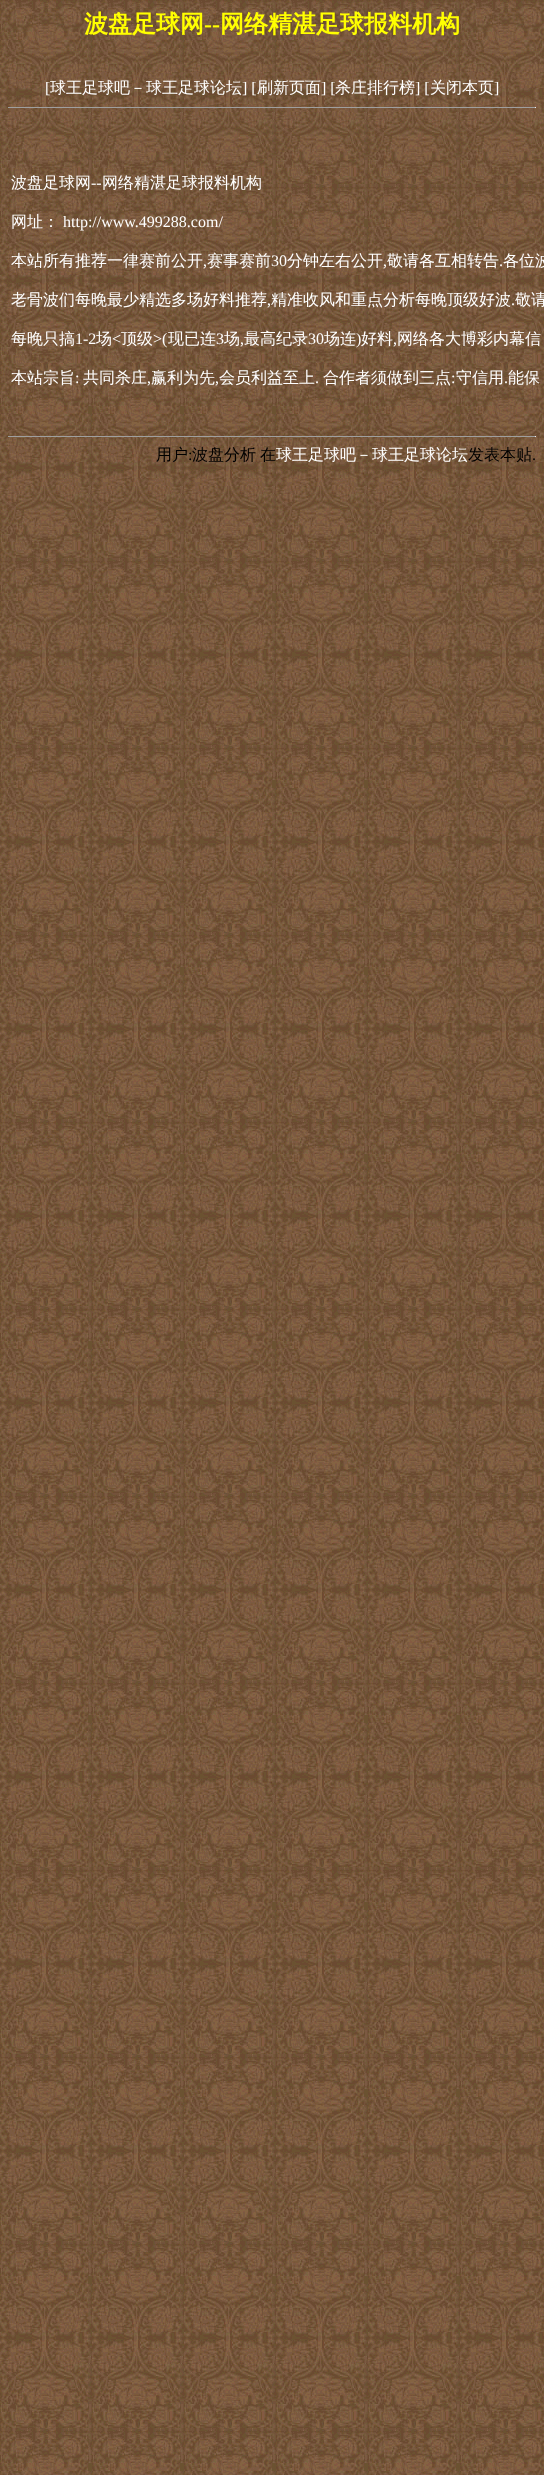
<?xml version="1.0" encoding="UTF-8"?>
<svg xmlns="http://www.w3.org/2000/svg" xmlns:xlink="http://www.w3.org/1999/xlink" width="544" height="2475">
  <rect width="100%" height="100%" fill="#ffffff" />
  <image x="0" y="0" width="544" height="2475" xlink:href="image1.png" />
  <rect x="8" y="107" width="528" height="1" fill="#9f9f9f" />
  <rect x="535" y="107" width="1" height="1" fill="#eeeeee" />
  <rect x="8" y="436" width="528" height="1" fill="#9f9f9f" />
  <rect x="535" y="436" width="1" height="1" fill="#eeeeee" />
  <text x="84" y="32" style="font-family: WenQuanYi Zen Hei; font-size: 24px; font-weight: bold; fill: #ffff00">波盘足球网</text>
  <text x="204" y="32" style="font-family: Liberation Serif; font-size: 24px; font-weight: bold; fill: #ffff00">--</text>
  <text x="220" y="32" style="font-family: WenQuanYi Zen Hei; font-size: 24px; font-weight: bold; fill: #ffff00">网络精湛足球报料机构</text>
  <text x="45" y="93" style="font-family: Liberation Serif; font-size: 16px; fill: #ffffff">[</text>
  <text x="50" y="93" style="font-family: WenQuanYi Zen Hei; font-size: 16px; font-weight: 500; fill: #ffffff">球王足球吧－球王足球论坛</text>
  <text x="242" y="93" style="font-family: Liberation Serif; font-size: 16px; fill: #ffffff">] [</text>
  <text x="257" y="93" style="font-family: WenQuanYi Zen Hei; font-size: 16px; font-weight: 500; fill: #ffffff">刷新页面</text>
  <text x="321" y="93" style="font-family: Liberation Serif; font-size: 16px; fill: #ffffff">] [</text>
  <text x="335" y="93" style="font-family: WenQuanYi Zen Hei; font-size: 16px; font-weight: 500; fill: #ffffff">杀庄排行榜</text>
  <text x="415" y="93" style="font-family: Liberation Serif; font-size: 16px; fill: #ffffff">] [</text>
  <text x="430" y="93" style="font-family: WenQuanYi Zen Hei; font-size: 16px; font-weight: 500; fill: #ffffff">关闭本页</text>
  <text x="494" y="93" style="font-family: Liberation Serif; font-size: 16px; fill: #ffffff">]</text>
  <text x="11" y="188" style="font-family: WenQuanYi Zen Hei; font-size: 16px; font-weight: 500; fill: #ffffff">波盘足球网</text>
  <text x="91" y="188" style="font-family: Liberation Serif; font-size: 16px; fill: #ffffff">--</text>
  <text x="102" y="188" style="font-family: WenQuanYi Zen Hei; font-size: 16px; font-weight: 500; fill: #ffffff">网络精湛足球报料机构</text>
  <text x="11" y="227" style="font-family: WenQuanYi Zen Hei; font-size: 16px; font-weight: 500; fill: #ffffff">网址：</text>
  <text x="63" y="227" style="font-family: Liberation Serif; font-size: 16px; fill: #ffffff">http://www.499288.com/</text>
  <text x="11" y="266" style="font-family: WenQuanYi Zen Hei; font-size: 16px; font-weight: 500; fill: #ffffff">本站所有推荐一律赛前公开</text>
  <text x="203" y="266" style="font-family: Liberation Serif; font-size: 16px; fill: #ffffff">,</text>
  <text x="207" y="266" style="font-family: WenQuanYi Zen Hei; font-size: 16px; font-weight: 500; fill: #ffffff">赛事赛前</text>
  <text x="271" y="266" style="font-family: Liberation Serif; font-size: 16px; fill: #ffffff">30</text>
  <text x="287" y="266" style="font-family: WenQuanYi Zen Hei; font-size: 16px; font-weight: 500; fill: #ffffff">分钟左右公开</text>
  <text x="383" y="266" style="font-family: Liberation Serif; font-size: 16px; fill: #ffffff">,</text>
  <text x="387" y="266" style="font-family: WenQuanYi Zen Hei; font-size: 16px; font-weight: 500; fill: #ffffff">敬请各互相转告</text>
  <text x="499" y="266" style="font-family: Liberation Serif; font-size: 16px; fill: #ffffff">.</text>
  <text x="503" y="266" style="font-family: WenQuanYi Zen Hei; font-size: 16px; font-weight: 500; fill: #ffffff">各位波</text>
  <text x="11" y="305" style="font-family: WenQuanYi Zen Hei; font-size: 16px; font-weight: 500; fill: #ffffff">老骨波们每晚最少精选多场好料推荐</text>
  <text x="267" y="305" style="font-family: Liberation Serif; font-size: 16px; fill: #ffffff">,</text>
  <text x="271" y="305" style="font-family: WenQuanYi Zen Hei; font-size: 16px; font-weight: 500; fill: #ffffff">精准收风和重点分析每晚顶级好波</text>
  <text x="511" y="305" style="font-family: Liberation Serif; font-size: 16px; fill: #ffffff">.</text>
  <text x="515" y="305" style="font-family: WenQuanYi Zen Hei; font-size: 16px; font-weight: 500; fill: #ffffff">敬请</text>
  <text x="11" y="344" style="font-family: WenQuanYi Zen Hei; font-size: 16px; font-weight: 500; fill: #ffffff">每晚只搞</text>
  <text x="75" y="344" style="font-family: Liberation Serif; font-size: 16px; fill: #ffffff">1-2</text>
  <text x="96" y="344" style="font-family: WenQuanYi Zen Hei; font-size: 16px; font-weight: 500; fill: #ffffff">场</text>
  <text x="112" y="344" style="font-family: Liberation Serif; font-size: 16px; fill: #ffffff">&lt;</text>
  <text x="121" y="344" style="font-family: WenQuanYi Zen Hei; font-size: 16px; font-weight: 500; fill: #ffffff">顶级</text>
  <text x="153" y="344" style="font-family: Liberation Serif; font-size: 16px; fill: #ffffff">&gt;(</text>
  <text x="168" y="344" style="font-family: WenQuanYi Zen Hei; font-size: 16px; font-weight: 500; fill: #ffffff">现已连</text>
  <text x="216" y="344" style="font-family: Liberation Serif; font-size: 16px; fill: #ffffff">3</text>
  <text x="224" y="344" style="font-family: WenQuanYi Zen Hei; font-size: 16px; font-weight: 500; fill: #ffffff">场</text>
  <text x="244" y="344" style="font-family: WenQuanYi Zen Hei; font-size: 16px; font-weight: 500; fill: #ffffff">最高纪录</text>
  <text x="308" y="344" style="font-family: Liberation Serif; font-size: 16px; fill: #ffffff">30</text>
  <text x="324" y="344" style="font-family: WenQuanYi Zen Hei; font-size: 16px; font-weight: 500; fill: #ffffff">场连</text>
  <text x="356" y="344" style="font-family: Liberation Serif; font-size: 16px; fill: #ffffff">)</text>
  <text x="361" y="344" style="font-family: WenQuanYi Zen Hei; font-size: 16px; font-weight: 500; fill: #ffffff">好料</text>
  <text x="397" y="344" style="font-family: WenQuanYi Zen Hei; font-size: 16px; font-weight: 500; fill: #ffffff">网络各大博彩内幕信</text>
  <text x="240" y="344" style="font-family: Liberation Serif; font-size: 16px; fill: #ffffff">,</text>
  <text x="393" y="344" style="font-family: Liberation Serif; font-size: 16px; fill: #ffffff">,</text>
  <text x="11" y="383" style="font-family: WenQuanYi Zen Hei; font-size: 16px; font-weight: 500; fill: #ffffff">本站宗旨</text>
  <text x="75" y="383" style="font-family: Liberation Serif; font-size: 16px; fill: #ffffff">:</text>
  <text x="83" y="383" style="font-family: WenQuanYi Zen Hei; font-size: 16px; font-weight: 500; fill: #ffffff">共同杀庄</text>
  <text x="147" y="383" style="font-family: Liberation Serif; font-size: 16px; fill: #ffffff">,</text>
  <text x="151" y="383" style="font-family: WenQuanYi Zen Hei; font-size: 16px; font-weight: 500; fill: #ffffff">赢利为先</text>
  <text x="215" y="383" style="font-family: Liberation Serif; font-size: 16px; fill: #ffffff">,</text>
  <text x="219" y="383" style="font-family: WenQuanYi Zen Hei; font-size: 16px; font-weight: 500; fill: #ffffff">会员利益至上</text>
  <text x="315" y="383" style="font-family: Liberation Serif; font-size: 16px; fill: #ffffff">.</text>
  <text x="323" y="383" style="font-family: WenQuanYi Zen Hei; font-size: 16px; font-weight: 500; fill: #ffffff">合作者须做到三点</text>
  <text x="451" y="383" style="font-family: Liberation Serif; font-size: 16px; fill: #ffffff">:</text>
  <text x="456" y="383" style="font-family: WenQuanYi Zen Hei; font-size: 16px; font-weight: 500; fill: #ffffff">守信用</text>
  <text x="504" y="383" style="font-family: Liberation Serif; font-size: 16px; fill: #ffffff">.</text>
  <text x="508" y="383" style="font-family: WenQuanYi Zen Hei; font-size: 16px; font-weight: 500; fill: #ffffff">能保</text>
  <text x="156" y="460" style="font-family: WenQuanYi Zen Hei; font-size: 16px; font-weight: 500; fill: #000000">用户</text>
  <text x="188" y="460" style="font-family: Liberation Serif; font-size: 16px; fill: #000000">:</text>
  <text x="192" y="460" style="font-family: WenQuanYi Zen Hei; font-size: 16px; font-weight: 500; fill: #000000">波盘分析</text>
  <text x="260" y="460" style="font-family: WenQuanYi Zen Hei; font-size: 16px; font-weight: 500; fill: #000000">在</text>
  <text x="276" y="460" style="font-family: WenQuanYi Zen Hei; font-size: 16px; font-weight: 500; fill: #ffffff">球王足球吧－球王足球论坛</text>
  <text x="468" y="460" style="font-family: WenQuanYi Zen Hei; font-size: 16px; font-weight: 500; fill: #000000">发表本贴</text>
  <text x="532" y="460" style="font-family: Liberation Serif; font-size: 16px; fill: #000000">.</text>
</svg>
